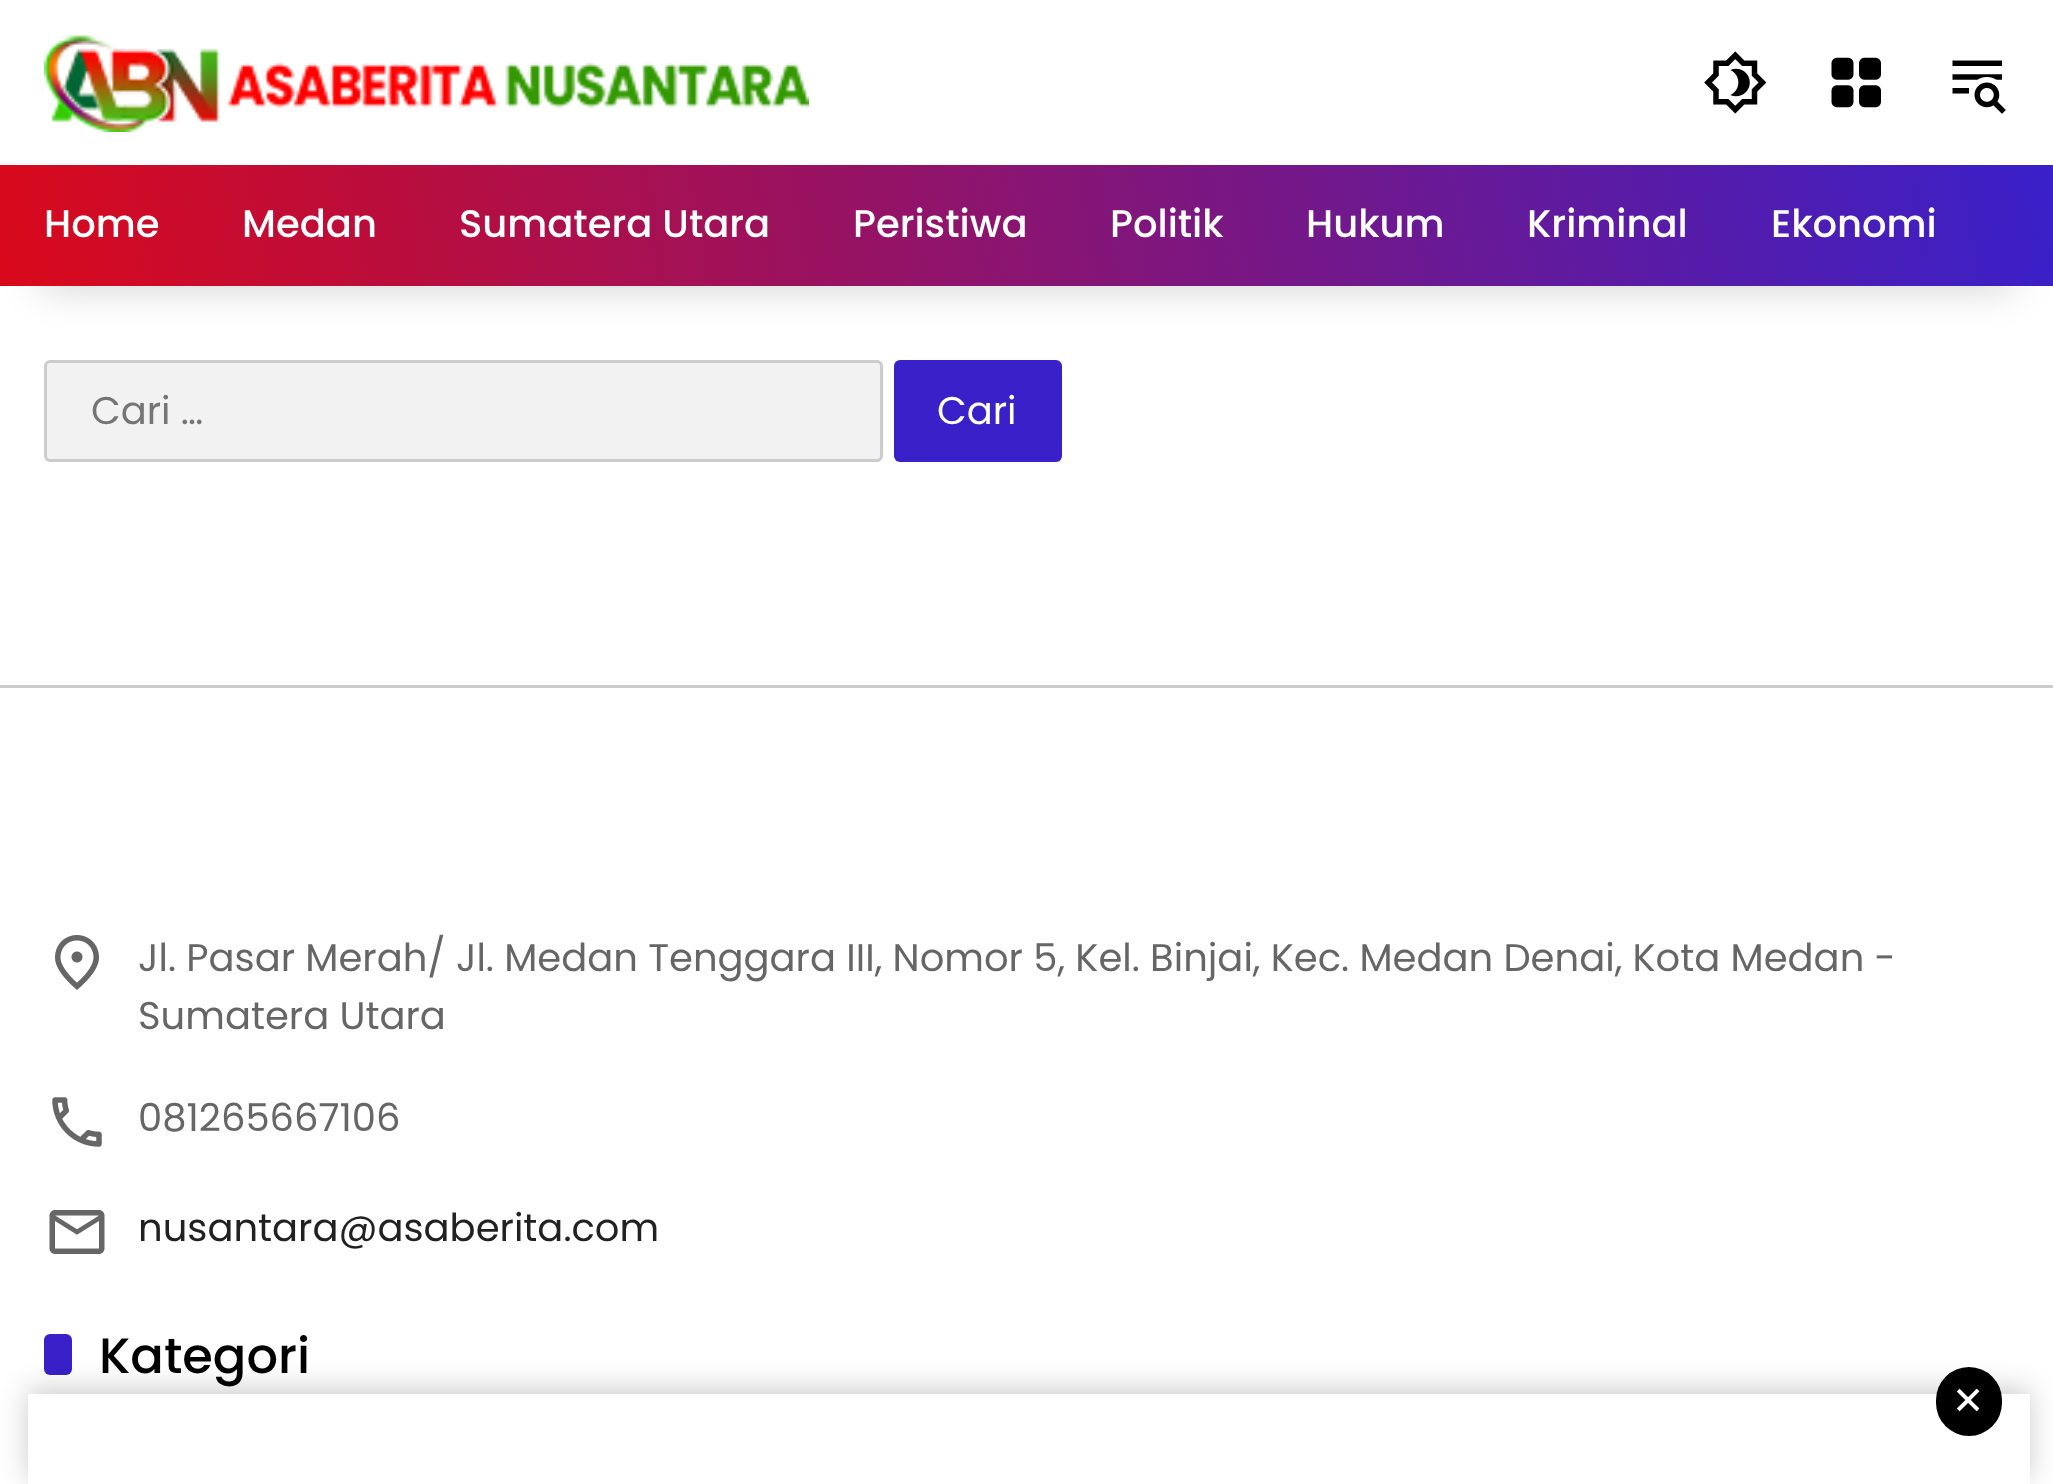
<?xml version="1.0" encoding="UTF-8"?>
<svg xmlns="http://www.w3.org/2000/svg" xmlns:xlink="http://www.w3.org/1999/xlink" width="2053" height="1484">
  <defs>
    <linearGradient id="g1" gradientUnits="userSpaceOnUse" x1="21" y1="403" x2="2034" y2="48"><stop offset="0" stop-color="#d9091b" /><stop offset="1" stop-color="#3920c9" /></linearGradient>
  </defs>
  <rect width="100%" height="100%" fill="#ffffff" />
  <image x="44" y="35" width="765" height="97" xlink:href="image1.png" />
  <image x="1704" y="51" width="63" height="63" xlink:href="image2.png" />
  <image x="1831" y="57" width="50" height="51" xlink:href="image3.png" />
  <image x="1952" y="60" width="54" height="54" xlink:href="image4.png" />
  <rect x="41" y="248" width="1972" height="38" fill="#000000" fill-opacity="0.2" filter="blur(20.5px)" />
  <rect y="165" width="2053" height="121" fill="url(#g1)" />
  <rect x="45.5" y="361.5" width="836" height="99" rx="4.5" fill="#f2f2f2" stroke="#cccccc" stroke-width="3" />
  <rect x="894" y="360" width="168" height="102" rx="6" fill="#3920c9" />
  <rect y="685" width="2053" height="3" fill="#cccccc" />
  <image x="55" y="935" width="44" height="55" xlink:href="image5.png" />
  <image x="52" y="1097" width="50" height="50" xlink:href="image6.png" />
  <image x="49" y="1210" width="56" height="44" xlink:href="image7.png" />
  <rect x="44" y="1334" width="28" height="41" rx="6" fill="#3920c9" />
  <rect x="28" y="1389" width="2002" height="91" fill="#000000" fill-opacity="0.2" filter="blur(14px)" />
  <rect x="28" y="1394" width="2002" height="90" fill="#ffffff" />
  <rect x="1936" y="1367" width="66" height="69" rx="33" fill="#000000" />
  <text x="44" y="237" style="font-family: Poppins; font-size: 38.5px; font-weight: 500; fill: #ffffff">Home</text>
  <text x="242" y="237" style="font-family: Poppins; font-size: 38.5px; font-weight: 500; fill: #ffffff">Medan</text>
  <text x="459" y="237" style="font-family: Poppins; font-size: 38.5px; font-weight: 500; fill: #ffffff">Sumatera Utara</text>
  <text x="853" y="237" style="font-family: Poppins; font-size: 38.5px; font-weight: 500; fill: #ffffff">Peristiwa</text>
  <text x="1110" y="237" style="font-family: Poppins; font-size: 38.5px; font-weight: 500; fill: #ffffff">Politik</text>
  <text x="1306" y="237" style="font-family: Poppins; font-size: 38.5px; font-weight: 500; fill: #ffffff">Hukum</text>
  <text x="1527" y="237" style="font-family: Poppins; font-size: 38.5px; font-weight: 500; fill: #ffffff">Kriminal</text>
  <text x="1771" y="237" style="font-family: Poppins; font-size: 38.5px; font-weight: 500; fill: #ffffff">Ekonomi</text>
  <text x="91" y="424" style="font-family: Poppins; font-size: 38.5px; fill: #757575">Cari …</text>
  <text x="937" y="424" style="font-family: Poppins; font-size: 38.5px; fill: #ffffff">Cari</text>
  <text x="138" y="971" style="font-family: Poppins; font-size: 38.5px; fill: #666666">Jl. Pasar Merah/ Jl. Medan Tenggara III, Nomor 5, Kel. Binjai, Kec. Medan Denai, Kota Medan -</text>
  <text x="138" y="1029" style="font-family: Poppins; font-size: 38.5px; fill: #666666">Sumatera Utara</text>
  <text x="138" y="1131" style="font-family: Poppins; font-size: 38.5px; fill: #666666">081265667106</text>
  <text x="138" y="1241" style="font-family: Poppins; font-size: 38.5px; fill: #212121">nusantara@asaberita.com</text>
  <text x="99" y="1373" style="font-family: Poppins; font-size: 49.5px; font-weight: 500; fill: #000000">Kategori</text>
  <text x="1952" y="1414" style="font-family: DejaVu Sans; font-size: 38.5px; fill: #ffffff">✕</text>
</svg>
